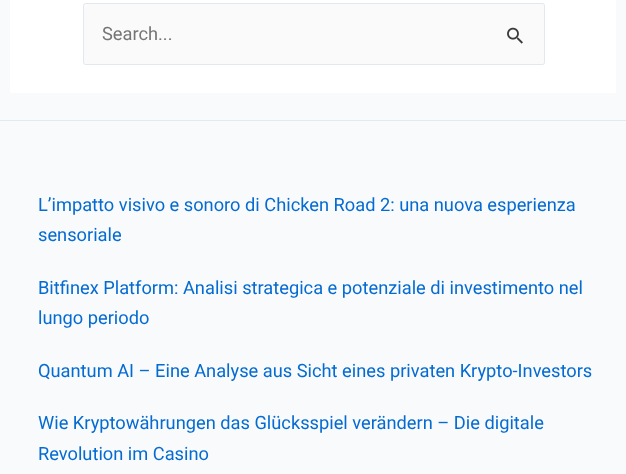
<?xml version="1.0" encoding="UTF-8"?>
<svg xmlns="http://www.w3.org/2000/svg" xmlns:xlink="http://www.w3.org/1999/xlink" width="626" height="474">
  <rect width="100%" height="100%" fill="#f9fafb" />
  <rect x="10" width="606" height="93" fill="#ffffff" />
  <rect x="83.5" y="3.5" width="461" height="61" rx="2" fill="#fafafa" stroke="#e2e8f0" />
  <image x="507" y="27" width="16" height="17" xlink:href="image1.png" />
  <rect y="120" width="626" height="1" fill="#e2e8f0" />
  <text x="102" y="40" style="font-family: Roboto; font-size: 18.25px; fill: #757575">Search...</text>
  <text x="38" y="211" style="font-family: Roboto; font-size: 18.25px; fill: #046bd2">L’impatto visivo e sonoro di Chicken Road 2: una nuova esperienza</text>
  <text x="38" y="241" style="font-family: Roboto; font-size: 18.25px; fill: #046bd2">sensoriale</text>
  <text x="38" y="294" style="font-family: Roboto; font-size: 18.25px; fill: #046bd2">Bitfinex Platform: Analisi strategica e potenziale di investimento nel</text>
  <text x="38" y="324" style="font-family: Roboto; font-size: 18.25px; fill: #046bd2">lungo periodo</text>
  <text x="38" y="377" style="font-family: Roboto; font-size: 18.25px; fill: #046bd2">Quantum AI – Eine Analyse aus Sicht eines privaten Krypto-Investors</text>
  <text x="38" y="429" style="font-family: Roboto; font-size: 18.25px; fill: #046bd2">Wie Kryptowährungen das Glücksspiel verändern – Die digitale</text>
  <text x="38" y="460" style="font-family: Roboto; font-size: 18.25px; fill: #046bd2">Revolution im Casino</text>
</svg>
